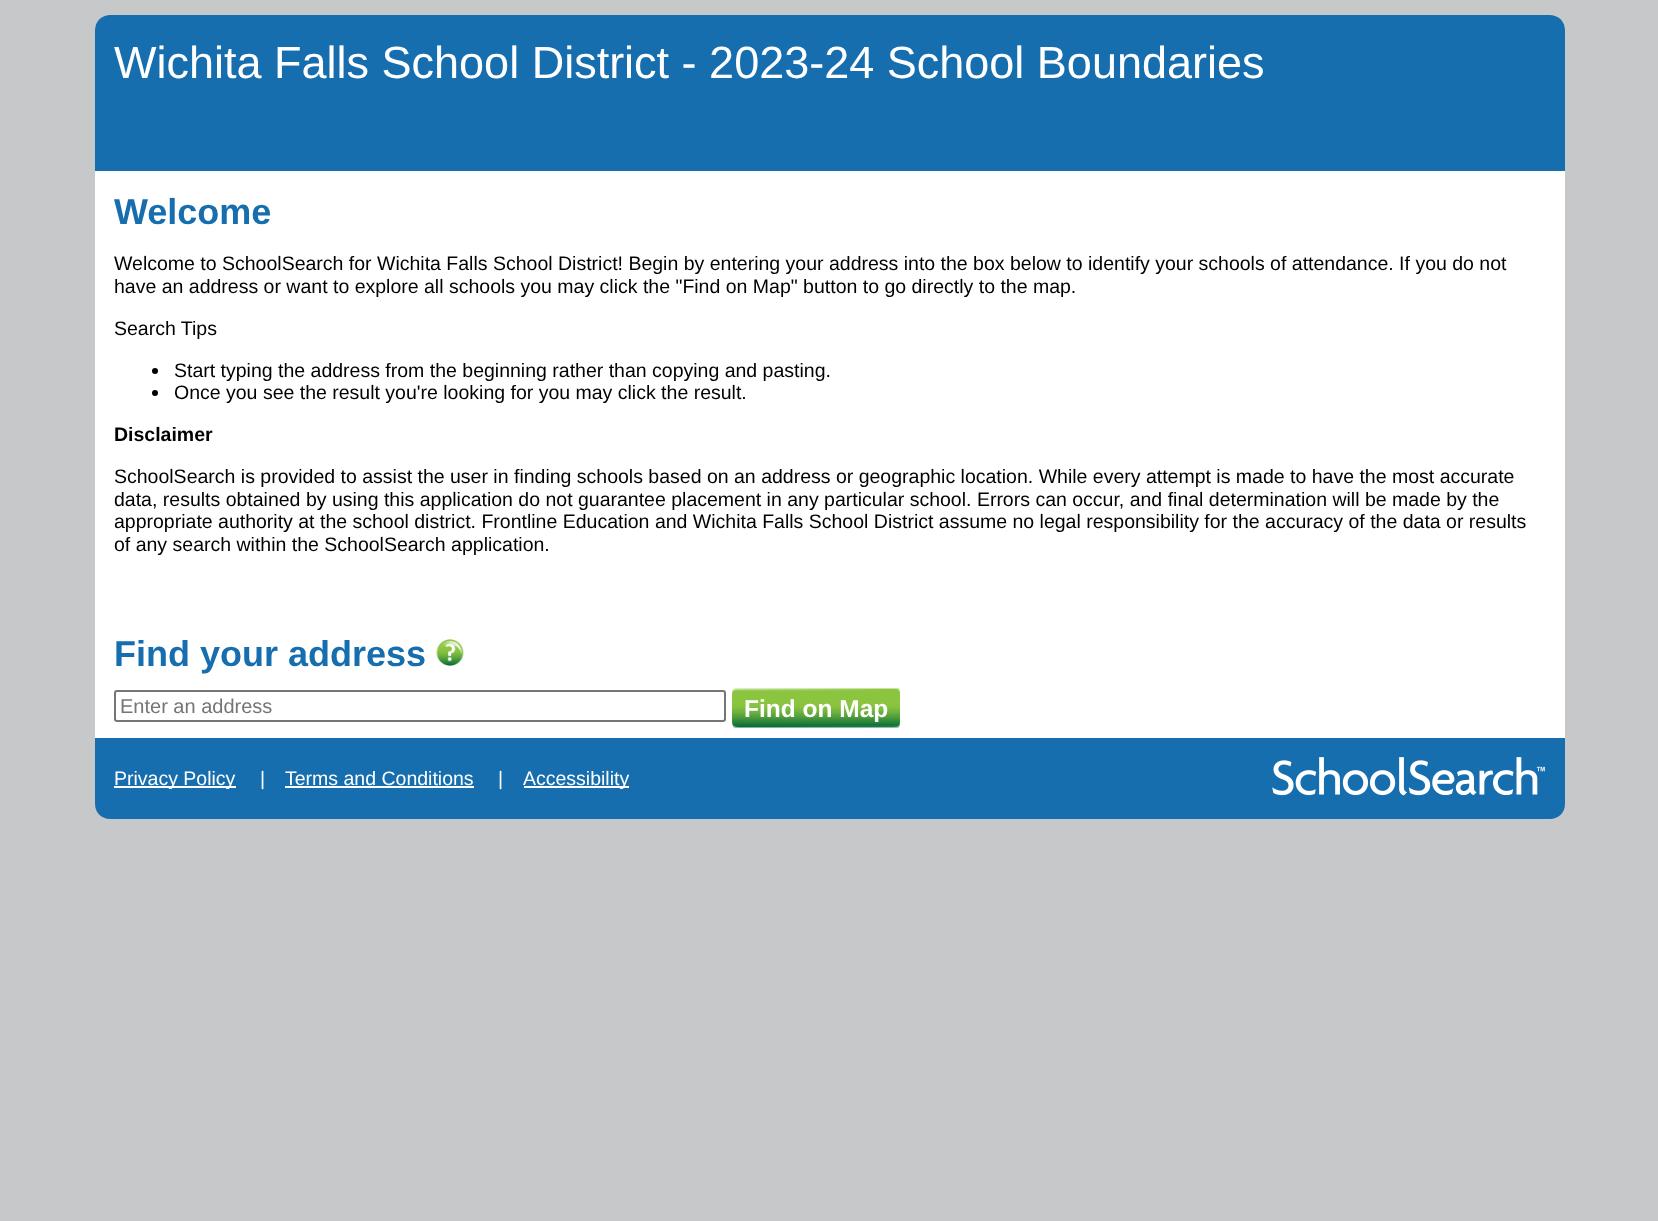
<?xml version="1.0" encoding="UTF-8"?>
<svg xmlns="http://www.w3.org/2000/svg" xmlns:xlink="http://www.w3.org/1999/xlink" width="1658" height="1221">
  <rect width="100%" height="100%" fill="#c7c8ca" />
  <path d="M 110 15 h 1440 c 8.5 0 15 6.5 15 15 v 708 h -1470 v -708 c 0 -8.5 6.5 -15 15 -15 z" fill="#ffffff" />
  <path d="M 110 15 h 1440 c 8.5 0 15 6.5 15 15 v 141 h -1470 v -141 c 0 -8.5 6.5 -15 15 -15 z" fill="#166eaf" />
  <circle cx="155" cy="371" r="3" fill="#000000" />
  <circle cx="155" cy="393" r="3" fill="#000000" />
  <image x="436" y="639" width="28" height="27" xlink:href="image1.png" />
  <rect x="115" y="691" width="610" height="30" rx="2" fill="none" stroke="#767676" stroke-width="2" />
  <image x="732" y="688" width="168" height="40" xlink:href="image2.png" />
  <path d="M 95 738 h 1470 v 66 c 0 8.5 -6.5 15 -15 15 h -1440 c -8.5 0 -15 -6.5 -15 -15 z" fill="#166eaf" />
  <rect x="114" y="786" width="122" height="2" fill="#ffffff" />
  <rect x="285" y="786" width="189" height="2" fill="#ffffff" />
  <rect x="524" y="786" width="105" height="2" fill="#ffffff" />
  <image x="1272" y="757" width="273" height="39" xlink:href="image3.png" />
  <text x="114" y="78" style="font-family: Liberation Sans; font-size: 45px; fill: #ffffff">Wichita Falls School District - 2023-24 School Boundaries</text>
  <text x="114" y="224" style="font-family: Liberation Sans; font-size: 36px; font-weight: bold; fill: #166eaf">Welcome</text>
  <text x="114" y="270" style="font-family: Liberation Sans; font-size: 19.5px; fill: #000000">Welcome to SchoolSearch for Wichita Falls School District! Begin by entering your address into the box below to identify your schools of attendance. If you do not</text>
  <text x="114" y="293" style="font-family: Liberation Sans; font-size: 19.5px; fill: #000000">have an address or want to explore all schools you may click the "Find on Map" button to go directly to the map.</text>
  <text x="114" y="335" style="font-family: Liberation Sans; font-size: 19.5px; fill: #000000">Search Tips</text>
  <text x="174" y="377" style="font-family: Liberation Sans; font-size: 19.5px; fill: #000000">Start typing the address from the beginning rather than copying and pasting.</text>
  <text x="174" y="399" style="font-family: Liberation Sans; font-size: 19.5px; fill: #000000">Once you see the result you're looking for you may click the result.</text>
  <text x="114" y="441" style="font-family: Liberation Sans; font-size: 19.5px; font-weight: bold; fill: #000000">Disclaimer</text>
  <text x="114" y="483" style="font-family: Liberation Sans; font-size: 19.5px; fill: #000000">SchoolSearch is provided to assist the user in finding schools based on an address or geographic location. While every attempt is made to have the most accurate</text>
  <text x="114" y="506" style="font-family: Liberation Sans; font-size: 19.5px; fill: #000000">data, results obtained by using this application do not guarantee placement in any particular school. Errors can occur, and final determination will be made by the</text>
  <text x="114" y="528" style="font-family: Liberation Sans; font-size: 19.5px; fill: #000000">appropriate authority at the school district. Frontline Education and Wichita Falls School District assume no legal responsibility for the accuracy of the data or results</text>
  <text x="114" y="551" style="font-family: Liberation Sans; font-size: 19.5px; fill: #000000">of any search within the SchoolSearch application.</text>
  <text x="114" y="666" style="font-family: Liberation Sans; font-size: 36px; font-weight: bold; fill: #166eaf">Find your address</text>
  <text x="120" y="713" style="font-family: Liberation Sans; font-size: 20px; fill: #757575">Enter an address</text>
  <text x="744" y="717" style="font-family: Liberation Sans; font-size: 24.5px; font-weight: bold; fill: #ffffff">Find on Map</text>
  <text x="114" y="785" style="font-family: Liberation Sans; font-size: 19.5px; fill: #ffffff">Privacy Policy</text>
  <text x="260" y="785" style="font-family: Liberation Sans; font-size: 19.5px; fill: #ffffff">|</text>
  <text x="285" y="785" style="font-family: Liberation Sans; font-size: 19.5px; fill: #ffffff">Terms and Conditions</text>
  <text x="498" y="785" style="font-family: Liberation Sans; font-size: 19.5px; fill: #ffffff">|</text>
  <text x="523" y="785" style="font-family: Liberation Sans; font-size: 19.5px; fill: #ffffff">Accessibility</text>
</svg>
